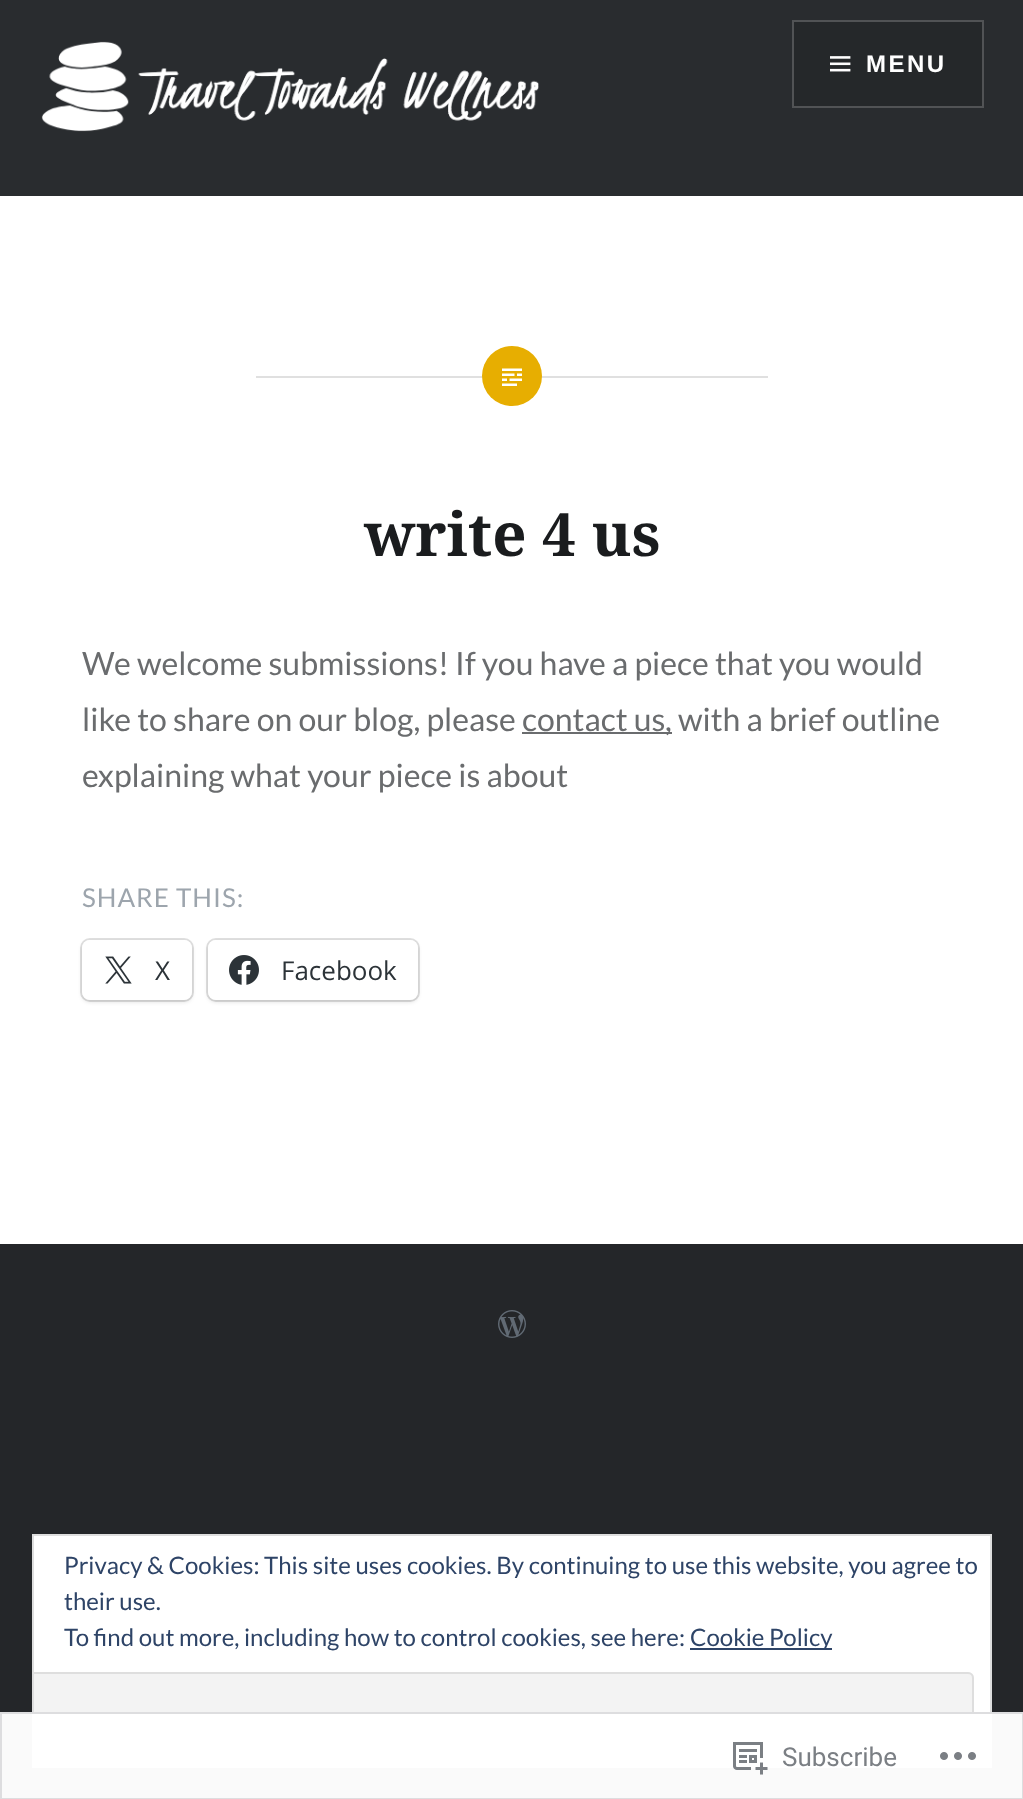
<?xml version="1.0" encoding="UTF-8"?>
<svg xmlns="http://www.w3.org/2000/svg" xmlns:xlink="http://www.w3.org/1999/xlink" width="1023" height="1799">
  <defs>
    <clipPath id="clip1"><rect x="34" y="1536" width="956" height="230" /></clipPath>
  </defs>
  <rect width="100%" height="100%" fill="#242629" />
  <rect y="196" width="1023" height="1048" fill="#ffffff" />
  <rect width="1023" height="196" fill="#292c2f" />
  <image x="41" y="41" width="498" height="91" xlink:href="image1.png" />
  <rect x="793" y="21" width="190" height="86" fill="#25282a" stroke="#515355" stroke-width="2" />
  <image x="830" y="56" width="21" height="16" xlink:href="image2.png" />
  <rect x="256" y="376" width="512" height="2" fill="#e0e0e0" />
  <circle cx="512" cy="376" r="30" fill="#e7ae01" />
  <image x="502" y="368" width="20" height="18" xlink:href="image3.png" />
  <rect x="522" y="732" width="150" height="2" fill="#6a6c6e" />
  <rect x="81" y="939" width="112" height="62" rx="9" fill="none" stroke="#e0e0e0" stroke-width="2" />
  <rect x="82" y="942" width="110" height="60" rx="8" fill="#000000" fill-opacity="0.12" filter="blur(2px)" />
  <rect x="82" y="940" width="110" height="60" rx="8" fill="#ffffff" />
  <image x="105" y="956" width="27" height="28" xlink:href="image4.png" />
  <rect x="207" y="939" width="212" height="62" rx="9" fill="none" stroke="#e0e0e0" stroke-width="2" />
  <rect x="208" y="942" width="210" height="60" rx="8" fill="#000000" fill-opacity="0.12" filter="blur(2px)" />
  <rect x="208" y="940" width="210" height="60" rx="8" fill="#ffffff" />
  <image x="229" y="955" width="30" height="30" xlink:href="image5.png" />
  <image x="498" y="1310" width="28" height="28" xlink:href="image6.png" />
  <rect x="33" y="1535" width="958" height="232" fill="#ffffff" stroke="#dedede" stroke-width="2" />
  <rect x="690" y="1648" width="142" height="2" fill="#2e4467" />
  <path d="M 34 1672 h 934 c 3.5 0 6 2.5 6 6 v 66 c 0 3.5 -2.5 6 -6 6 h -934 z" fill="#f3f3f3" />
  <g clip-path="url(#clip1)">
    <rect x="19" y="1673" width="954" height="76" rx="5" fill="none" stroke="#dedede" stroke-width="2" />
  </g>
  <rect y="1712" width="1023" height="87" fill="#ffffff" fill-opacity="0.98" />
  <rect x="1" y="1713" width="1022" height="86" fill="none" stroke="#dcdcde" stroke-opacity="0.98" stroke-width="2" />
  <image x="733" y="1742" width="35" height="33" xlink:href="image7.png" />
  <image x="940" y="1752" width="36" height="8" xlink:href="image8.png" />
  <text x="866" y="72" style="font-family: Liberation Sans; font-size: 24px; font-weight: bold; letter-spacing: 2.5px; fill: #ffffff">MENU</text>
  <text x="364" y="556" style="font-family: Noto Serif; font-size: 60px; font-weight: bold; fill: #1a1c1e">write 4 us</text>
  <text x="82" y="675" style="font-family: Lato; font-size: 32px; fill: #6a6c6e">We welcome submissions! If you have a piece that you would</text>
  <text x="82" y="731" style="font-family: Lato; font-size: 32px; fill: #6a6c6e">like to share on our blog, please contact us</text>
  <text x="665" y="731" style="font-family: Lato; font-size: 32px; fill: #6a6c6e">, with a brief outline</text>
  <text x="82" y="787" style="font-family: Lato; font-size: 32px; fill: #6a6c6e">explaining what your piece is about</text>
  <text x="82" y="907" style="font-family: Lato; font-size: 26px; letter-spacing: 1px; fill: #9da5ad">SHARE THIS:</text>
  <text x="155" y="980" style="font-family: Open Sans; font-size: 26px; fill: #2c3338">X</text>
  <text x="281" y="980" style="font-family: Open Sans; font-size: 26px; fill: #2c3338">Facebook</text>
  <text x="64" y="1574" style="font-family: Lato; font-size: 24px; fill: #2e4467">Privacy &amp; Cookies: This site uses cookies. By continuing to use this website, you agree to</text>
  <text x="64" y="1610" style="font-family: Lato; font-size: 24px; fill: #2e4467">their use.</text>
  <text x="64" y="1646" style="font-family: Lato; font-size: 24px; fill: #2e4467">To find out more, including how to control cookies, see here:</text>
  <text x="690" y="1646" style="font-family: Lato; font-size: 24px; fill: #2e4467">Cookie Policy</text>
  <text x="782" y="1766" style="font-family: Roboto; font-size: 26px; fill: #7b7f84">Subscribe</text>
</svg>
